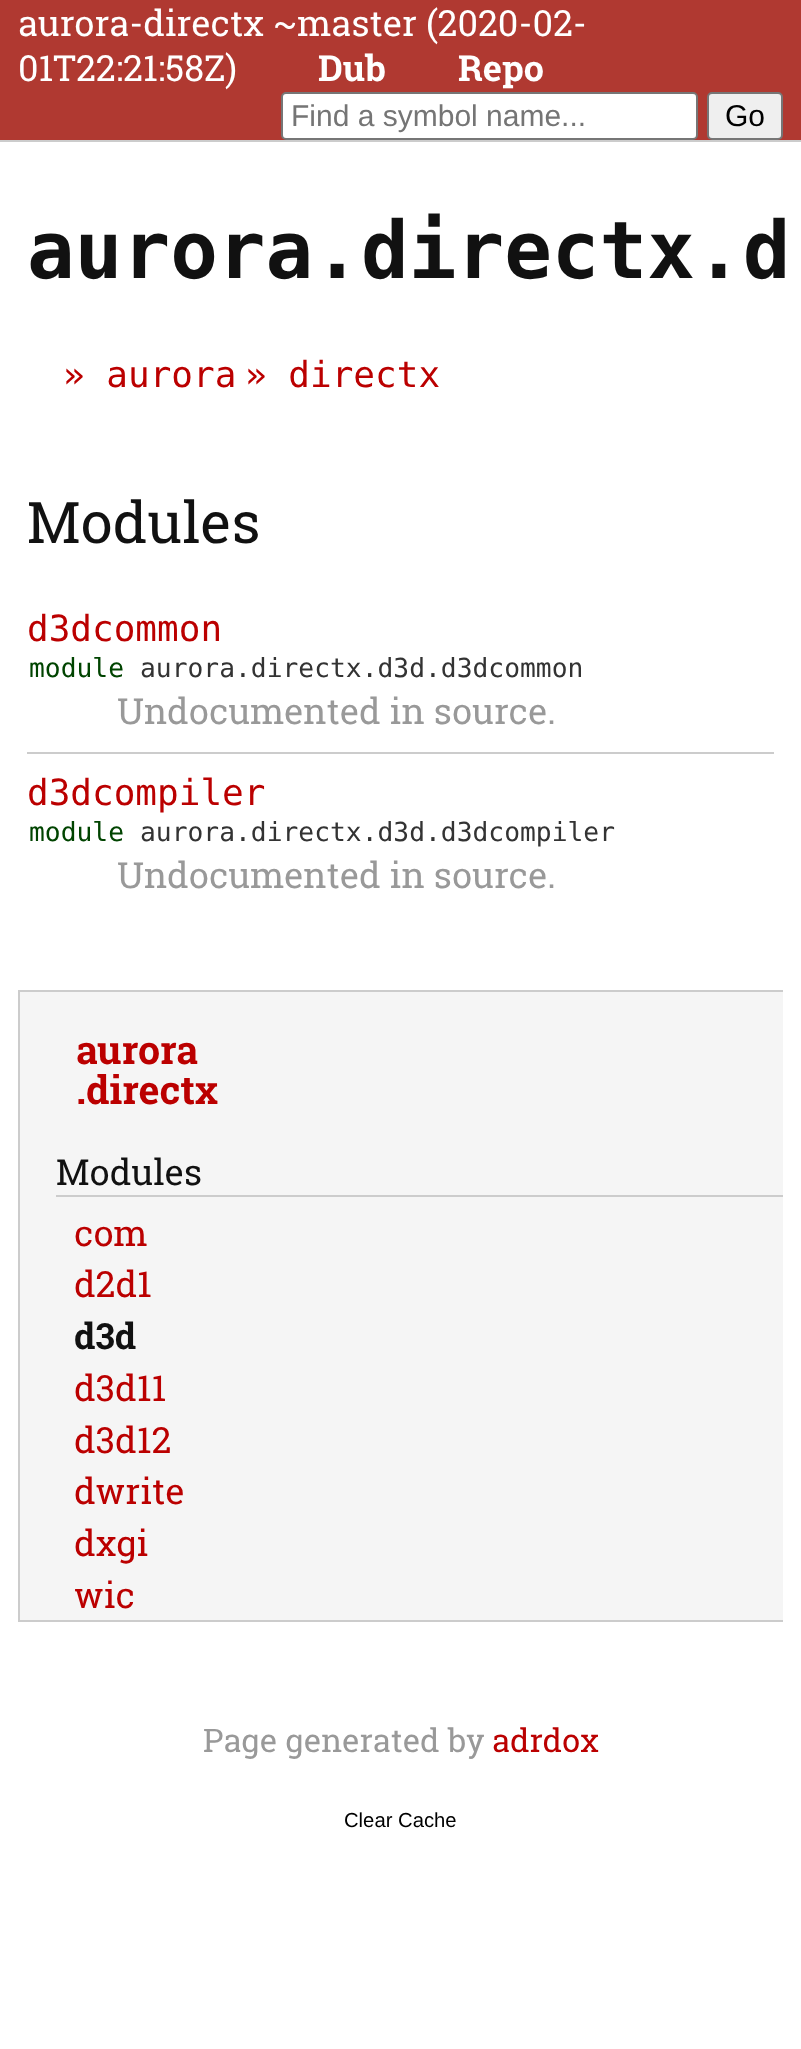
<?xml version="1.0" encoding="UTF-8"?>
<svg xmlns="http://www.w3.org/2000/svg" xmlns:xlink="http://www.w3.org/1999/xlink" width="801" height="2049">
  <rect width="100%" height="100%" fill="#ffffff" />
  <rect width="801" height="140" fill="#b03931" />
  <rect y="140" width="801" height="2" fill="#cccccc" />
  <rect x="282" y="93" width="415" height="46" rx="4" fill="#ffffff" stroke="#767676" stroke-width="2" />
  <rect x="708" y="93" width="74" height="46" rx="4" fill="#efefef" stroke="#767676" stroke-width="2" />
  <rect x="27" y="752" width="747" height="2" fill="#cccccc" />
  <rect x="20" y="992" width="763" height="628" fill="#f5f5f5" />
  <rect x="18" y="990" width="765" height="2" fill="#cccccc" />
  <rect x="18" y="990" width="2" height="630" fill="#cccccc" />
  <rect x="56" y="1195" width="727" height="2" fill="#cccccc" />
  <rect x="18" y="1620" width="765" height="2" fill="#cccccc" />
  <text x="18" y="36" style="font-family: Roboto Slab; font-size: 36px; fill: #ffffff">aurora-directx ~master (2020-02-</text>
  <text x="18" y="81" style="font-family: Roboto Slab; font-size: 36px; fill: #ffffff">01T22:21:58Z)</text>
  <text x="318" y="81" style="font-family: Roboto Slab; font-size: 36px; font-weight: bold; fill: #ffffff">Dub</text>
  <text x="458" y="81" style="font-family: Roboto Slab; font-size: 36px; font-weight: bold; fill: #ffffff">Repo</text>
  <text x="291" y="126" style="font-family: Liberation Sans; font-size: 30px; fill: #757575">Find a symbol name...</text>
  <text x="725" y="126" style="font-family: Liberation Sans; font-size: 30px; fill: #000000">Go</text>
  <text x="27" y="278" style="font-family: DejaVu Sans Mono; font-size: 79.25px; font-weight: bold; fill: #111111">aurora.directx.d</text>
  <text x="63" y="387" style="font-family: DejaVu Sans Mono; font-size: 36px; fill: #bb0000">» aurora</text>
  <text x="245" y="387" style="font-family: DejaVu Sans Mono; font-size: 36px; fill: #bb0000">» directx</text>
  <text x="27" y="543" style="font-family: Roboto Slab; font-size: 57.5px; fill: #111111">Modules</text>
  <text x="27" y="641" style="font-family: DejaVu Sans Mono; font-size: 36px; fill: #bb0000">d3dcommon</text>
  <text x="29" y="677" style="font-family: DejaVu Sans Mono; font-size: 26.3px; fill: #004400">module</text>
  <text x="140" y="677" style="font-family: DejaVu Sans Mono; font-size: 26.3px; fill: #333333">aurora.directx.d3d.d3dcommon</text>
  <text x="117" y="724" style="font-family: Roboto Slab; font-size: 36px; fill: #999999">Undocumented in source.</text>
  <text x="27" y="805" style="font-family: DejaVu Sans Mono; font-size: 36px; fill: #bb0000">d3dcompiler</text>
  <text x="29" y="841" style="font-family: DejaVu Sans Mono; font-size: 26.3px; fill: #004400">module</text>
  <text x="140" y="841" style="font-family: DejaVu Sans Mono; font-size: 26.3px; fill: #333333">aurora.directx.d3d.d3dcompiler</text>
  <text x="117" y="888" style="font-family: Roboto Slab; font-size: 36px; fill: #999999">Undocumented in source.</text>
  <text x="76" y="1064" style="font-family: Roboto Slab; font-size: 39.5px; font-weight: bold; fill: #bb0000">aurora</text>
  <text x="76" y="1104" style="font-family: Roboto Slab; font-size: 39.5px; font-weight: bold; fill: #bb0000">.directx</text>
  <text x="56" y="1185" style="font-family: Roboto Slab; font-size: 36px; fill: #111111">Modules</text>
  <text x="74" y="1246" style="font-family: Roboto Slab; font-size: 36px; fill: #bb0000">com</text>
  <text x="74" y="1297" style="font-family: Roboto Slab; font-size: 36px; fill: #bb0000">d2d1</text>
  <text x="74" y="1349" style="font-family: Roboto Slab; font-size: 36px; font-weight: bold; fill: #111111">d3d</text>
  <text x="74" y="1401" style="font-family: Roboto Slab; font-size: 36px; fill: #bb0000">d3d11</text>
  <text x="74" y="1453" style="font-family: Roboto Slab; font-size: 36px; fill: #bb0000">d3d12</text>
  <text x="74" y="1504" style="font-family: Roboto Slab; font-size: 36px; fill: #bb0000">dwrite</text>
  <text x="74" y="1556" style="font-family: Roboto Slab; font-size: 36px; fill: #bb0000">dxgi</text>
  <text x="74" y="1608" style="font-family: Roboto Slab; font-size: 36px; fill: #bb0000">wic</text>
  <text x="203" y="1752" style="font-family: Roboto Slab; font-size: 32.5px; fill: #999999">Page generated by</text>
  <text x="492" y="1752" style="font-family: Roboto Slab; font-size: 32.5px; fill: #bb0000">adrdox</text>
  <text x="344" y="1827" style="font-family: Liberation Sans; font-size: 20.25px; fill: #000000">Clear Cache</text>
</svg>
